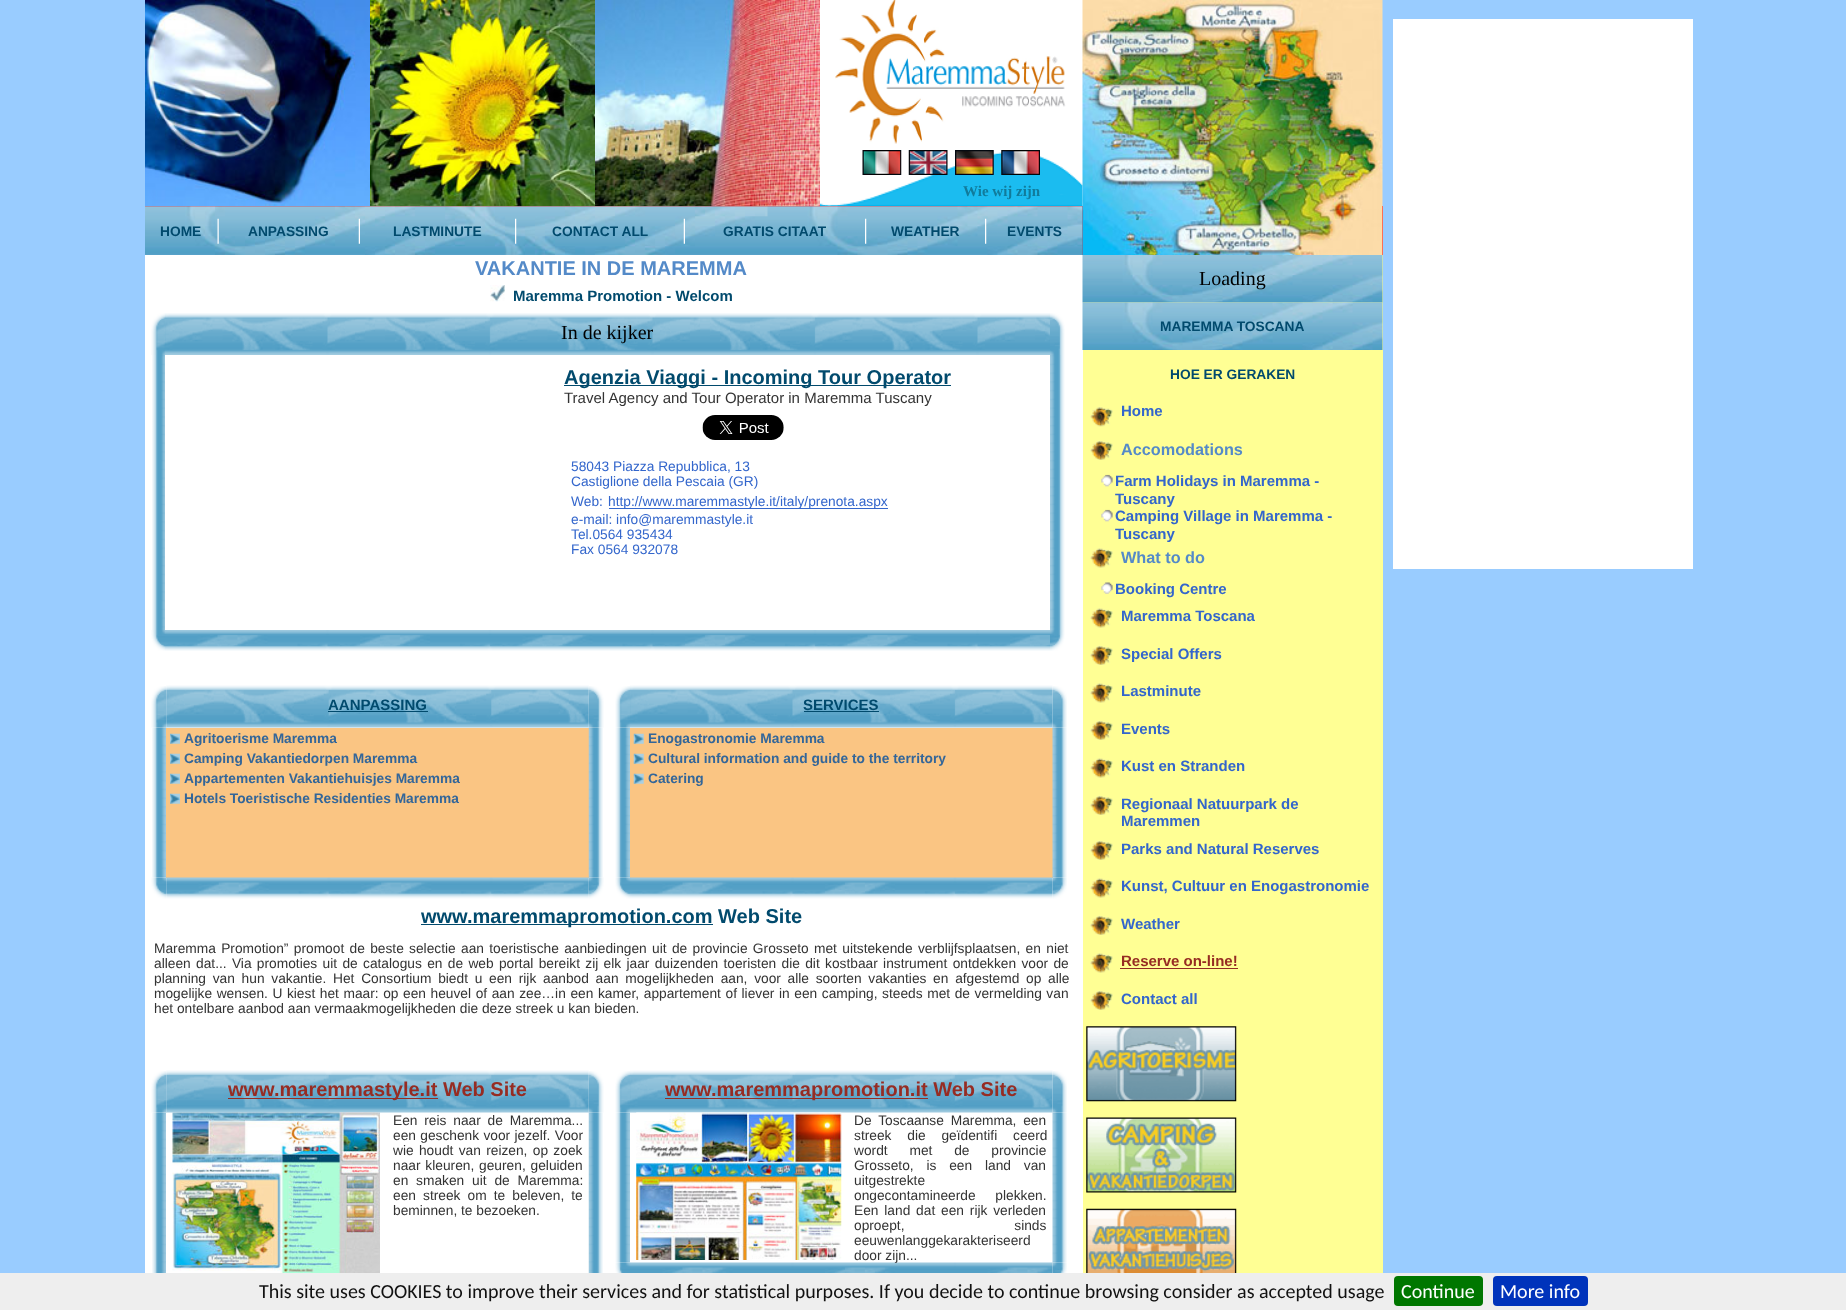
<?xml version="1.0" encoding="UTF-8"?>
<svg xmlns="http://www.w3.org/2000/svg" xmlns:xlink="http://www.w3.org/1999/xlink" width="1846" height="1310">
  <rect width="100%" height="100%" fill="#99ccff" />
  <rect x="820" width="263" height="206" fill="#ffffff" />
  <rect x="145" y="206" width="1238" height="49" fill="#ff0000" />
  <image x="145" y="206" width="938" height="49" xlink:href="image11.png" />
  <image x="145" y="0" width="225" height="207" xlink:href="image1.png" />
  <image x="370" y="0" width="225" height="207" xlink:href="image2.png" />
  <image x="595" y="0" width="225" height="207" xlink:href="image3.png" />
  <image x="835" y="0" width="231" height="144" xlink:href="image4.png" />
  <image x="820" y="151" width="263" height="55" xlink:href="image5.png" />
  <image x="862" y="150" width="40" height="25" xlink:href="image6.png" />
  <image x="908" y="150" width="40" height="25" xlink:href="image7.png" />
  <image x="955" y="150" width="39" height="25" xlink:href="image8.png" />
  <image x="1001" y="150" width="39" height="25" xlink:href="image9.png" />
  <image x="1082" y="0" width="301" height="255" xlink:href="image10.png" />
  <image x="217" y="218" width="2" height="26" xlink:href="image12.png" />
  <image x="358" y="218" width="2" height="26" xlink:href="image13.png" />
  <image x="515" y="218" width="2" height="26" xlink:href="image14.png" />
  <image x="683" y="218" width="2" height="26" xlink:href="image15.png" />
  <image x="865" y="218" width="2" height="26" xlink:href="image16.png" />
  <image x="985" y="218" width="2" height="26" xlink:href="image17.png" />
  <rect x="145" y="255" width="938" height="1018" fill="#ffffff" />
  <image x="490" y="285" width="15" height="17" xlink:href="image18.png" />
  <image x="151" y="313" width="14" height="42" xlink:href="image19.png" />
  <image x="165" y="313" width="885" height="42" xlink:href="image20.png" />
  <image x="1050" y="313" width="15" height="42" xlink:href="image21.png" />
  <image x="152" y="355" width="13" height="275" xlink:href="image22.png" />
  <rect x="564" y="385" width="387" height="1" fill="#014a6d" />
  <image x="702" y="415" width="82" height="25" xlink:href="image23.png" />
  <rect x="609" y="508" width="279" height="1" fill="#3366cc" />
  <image x="1050" y="355" width="15" height="275" xlink:href="image24.png" />
  <image x="151" y="630" width="14" height="21" xlink:href="image25.png" />
  <image x="165" y="630" width="885" height="21" xlink:href="image26.png" />
  <image x="1050" y="630" width="15" height="21" xlink:href="image27.png" />
  <image x="151" y="686" width="16" height="42" xlink:href="image28.png" />
  <image x="166" y="685" width="423" height="43" xlink:href="image29.png" />
  <rect x="328" y="711" width="100" height="1" fill="#014a6d" />
  <image x="588" y="686" width="16" height="42" xlink:href="image30.png" />
  <image x="152" y="727" width="15" height="151" xlink:href="image31.png" />
  <rect x="166" y="728" width="423" height="150" fill="#fac583" />
  <image x="170" y="733" width="10" height="11" xlink:href="image32.png" />
  <image x="170" y="753" width="10" height="11" xlink:href="image32.png" />
  <image x="170" y="773" width="10" height="11" xlink:href="image33.png" />
  <image x="170" y="793" width="10" height="11" xlink:href="image32.png" />
  <image x="588" y="727" width="15" height="151" xlink:href="image34.png" />
  <image x="151" y="877" width="16" height="22" xlink:href="image35.png" />
  <image x="166" y="877" width="423" height="22" xlink:href="image36.png" />
  <image x="588" y="877" width="16" height="22" xlink:href="image37.png" />
  <image x="615" y="686" width="15" height="42" xlink:href="image38.png" />
  <image x="630" y="685" width="423" height="43" xlink:href="image39.png" />
  <rect x="804" y="711" width="75" height="1" fill="#014a6d" />
  <image x="1052" y="686" width="15" height="42" xlink:href="image40.png" />
  <image x="615" y="727" width="15" height="151" xlink:href="image41.png" />
  <rect x="630" y="728" width="423" height="150" fill="#fac583" />
  <image x="633" y="733" width="11" height="11" xlink:href="image42.png" />
  <image x="633" y="753" width="11" height="11" xlink:href="image42.png" />
  <image x="633" y="773" width="11" height="11" xlink:href="image43.png" />
  <image x="1052" y="727" width="15" height="151" xlink:href="image44.png" />
  <image x="615" y="877" width="15" height="22" xlink:href="image45.png" />
  <image x="630" y="877" width="423" height="22" xlink:href="image46.png" />
  <image x="1052" y="877" width="15" height="22" xlink:href="image47.png" />
  <rect x="421" y="924" width="292" height="1" fill="#014a6d" />
  <image x="151" y="1071" width="16" height="42" xlink:href="image28.png" />
  <image x="166" y="1070" width="423" height="43" xlink:href="image48.png" />
  <rect x="228" y="1098" width="210" height="1" fill="#962c23" />
  <image x="588" y="1071" width="16" height="42" xlink:href="image30.png" />
  <image x="152" y="1112" width="15" height="161" xlink:href="image49.png" />
  <rect x="166" y="1113" width="1" height="160" fill="#ffffff" />
  <image x="172" y="1112" width="208" height="161" xlink:href="image50.png" />
  <image x="588" y="1112" width="15" height="161" xlink:href="image51.png" />
  <image x="615" y="1071" width="15" height="42" xlink:href="image38.png" />
  <image x="630" y="1070" width="423" height="43" xlink:href="image52.png" />
  <rect x="665" y="1098" width="263" height="1" fill="#962c23" />
  <image x="1052" y="1071" width="15" height="42" xlink:href="image40.png" />
  <image x="615" y="1112" width="15" height="151" xlink:href="image53.png" />
  <image x="636" y="1112" width="206" height="148" xlink:href="image54.png" />
  <image x="1052" y="1112" width="15" height="151" xlink:href="image55.png" />
  <image x="615" y="1262" width="15" height="11" xlink:href="image56.png" />
  <image x="630" y="1262" width="423" height="11" xlink:href="image57.png" />
  <image x="1052" y="1262" width="15" height="11" xlink:href="image58.png" />
  <rect x="1083" y="255" width="300" height="1018" fill="#ffff94" />
  <image x="1082" y="255" width="301" height="48" xlink:href="image59.png" />
  <image x="1082" y="302" width="301" height="48" xlink:href="image60.png" />
  <image x="1090" y="406" width="23" height="21" xlink:href="image61.png" />
  <image x="1090" y="440" width="23" height="20" xlink:href="image62.png" />
  <image x="1101" y="474" width="12" height="13" xlink:href="image63.png" />
  <image x="1101" y="509" width="12" height="13" xlink:href="image63.png" />
  <image x="1090" y="547" width="23" height="21" xlink:href="image64.png" />
  <image x="1101" y="582" width="12" height="12" xlink:href="image65.png" />
  <image x="1090" y="607" width="23" height="21" xlink:href="image64.png" />
  <image x="1090" y="645" width="23" height="20" xlink:href="image62.png" />
  <image x="1090" y="682" width="23" height="21" xlink:href="image64.png" />
  <image x="1090" y="720" width="23" height="20" xlink:href="image62.png" />
  <image x="1090" y="757" width="23" height="21" xlink:href="image64.png" />
  <image x="1090" y="795" width="23" height="20" xlink:href="image62.png" />
  <image x="1090" y="840" width="23" height="20" xlink:href="image62.png" />
  <image x="1090" y="877" width="23" height="21" xlink:href="image64.png" />
  <image x="1090" y="915" width="23" height="20" xlink:href="image62.png" />
  <image x="1090" y="952" width="23" height="21" xlink:href="image64.png" />
  <rect x="1120" y="968" width="118" height="1" fill="#922b24" />
  <image x="1090" y="990" width="23" height="20" xlink:href="image62.png" />
  <image x="1086" y="1026" width="151" height="76" xlink:href="image66.png" />
  <image x="1086" y="1117" width="151" height="76" xlink:href="image67.png" />
  <image x="1086" y="1208" width="151" height="65" xlink:href="image68.png" />
  <rect x="1393" y="19" width="300" height="550" fill="#ffffff" />
  <rect y="1273" width="1846" height="37" fill="#eeeeee" />
  <rect x="1394" y="1276" width="89" height="30" rx="4" fill="#007700" />
  <rect x="1493" y="1276" width="95" height="30" rx="4" fill="#0033bb" />
  <text x="963" y="196" style="font-family: Liberation Serif; font-size: 15px; font-weight: bold; fill: #117b9b">Wie wij zijn</text>
  <text x="160" y="236" style="font-family: Liberation Sans; font-size: 13.75px; font-weight: bold; fill: #014a6d">HOME</text>
  <text x="248" y="236" style="font-family: Liberation Sans; font-size: 13.75px; font-weight: bold; fill: #014a6d">ANPASSING</text>
  <text x="393" y="236" style="font-family: Liberation Sans; font-size: 13.75px; font-weight: bold; fill: #014a6d">LASTMINUTE</text>
  <text x="552" y="236" style="font-family: Liberation Sans; font-size: 13.75px; font-weight: bold; fill: #014a6d">CONTACT ALL</text>
  <text x="723" y="236" style="font-family: Liberation Sans; font-size: 13.75px; font-weight: bold; fill: #014a6d">GRATIS CITAAT</text>
  <text x="891" y="236" style="font-family: Liberation Sans; font-size: 13.75px; font-weight: bold; fill: #014a6d">WEATHER</text>
  <text x="1007" y="236" style="font-family: Liberation Sans; font-size: 13.75px; font-weight: bold; fill: #014a6d">EVENTS</text>
  <text x="475" y="275" style="font-family: Liberation Sans; font-size: 20px; font-weight: bold; fill: #548ac8">VAKANTIE IN DE MAREMMA</text>
  <text x="513" y="301" style="font-family: Liberation Sans; font-size: 15px; font-weight: bold; fill: #014a6d">Maremma Promotion - Welcom</text>
  <text x="561" y="339" style="font-family: Liberation Serif; font-size: 20px; fill: #000000">In de kijker</text>
  <text x="564" y="384" style="font-family: Liberation Sans; font-size: 20px; font-weight: bold; fill: #014a6d">Agenzia Viaggi - Incoming Tour Operator</text>
  <text x="564" y="403" style="font-family: Liberation Sans; font-size: 15px; fill: #333333">Travel Agency and Tour Operator in Maremma Tuscany</text>
  <text x="571" y="471" style="font-family: Liberation Sans; font-size: 13.75px; fill: #3366cc">58043 Piazza Repubblica, 13</text>
  <text x="571" y="486" style="font-family: Liberation Sans; font-size: 13.75px; fill: #3366cc">Castiglione della Pescaia (GR)</text>
  <text x="571" y="506" style="font-family: Liberation Sans; font-size: 13.75px; fill: #3366cc">Web:</text>
  <text x="608" y="506" style="font-family: Liberation Sans; font-size: 13.75px; fill: #3366cc">http://www.maremmastyle.it/italy/prenota.aspx</text>
  <text x="571" y="524" style="font-family: Liberation Sans; font-size: 13.75px; fill: #3366cc">e-mail: info@maremmastyle.it</text>
  <text x="571" y="539" style="font-family: Liberation Sans; font-size: 13.75px; fill: #3366cc">Tel.0564 935434</text>
  <text x="571" y="554" style="font-family: Liberation Sans; font-size: 13.75px; fill: #3366cc">Fax 0564 932078</text>
  <text x="328" y="710" style="font-family: Liberation Sans; font-size: 15px; font-weight: bold; fill: #014a6d">AANPASSING</text>
  <text x="184" y="743" style="font-family: Liberation Sans; font-size: 13.75px; font-weight: bold; fill: #336699">Agritoerisme Maremma</text>
  <text x="184" y="763" style="font-family: Liberation Sans; font-size: 13.75px; font-weight: bold; fill: #336699">Camping Vakantiedorpen Maremma</text>
  <text x="184" y="783" style="font-family: Liberation Sans; font-size: 13.75px; font-weight: bold; fill: #336699">Appartementen Vakantiehuisjes Maremma</text>
  <text x="184" y="803" style="font-family: Liberation Sans; font-size: 13.75px; font-weight: bold; fill: #336699">Hotels Toeristische Residenties Maremma</text>
  <text x="803" y="710" style="font-family: Liberation Sans; font-size: 15px; font-weight: bold; fill: #014a6d">SERVICES</text>
  <text x="648" y="743" style="font-family: Liberation Sans; font-size: 13.75px; font-weight: bold; fill: #336699">Enogastronomie Maremma</text>
  <text x="648" y="763" style="font-family: Liberation Sans; font-size: 13.75px; font-weight: bold; fill: #336699">Cultural information and guide to the territory</text>
  <text x="648" y="783" style="font-family: Liberation Sans; font-size: 13.75px; font-weight: bold; fill: #336699">Catering</text>
  <text x="421" y="923" style="font-family: Liberation Sans; font-size: 20px; font-weight: bold; fill: #014a6d">www.maremmapromotion.com Web Site</text>
  <text x="154" y="953" word-spacing="1.5" style="font-family: Liberation Sans; font-size: 13.75px; fill: #333333">Maremma Promotion” promoot de beste selectie aan toeristische aanbiedingen uit de provincie Grosseto</text>
  <text x="814" y="953" word-spacing="1.5" style="font-family: Liberation Sans; font-size: 13.75px; fill: #333333">met uitstekende verblijfsplaatsen, en niet</text>
  <text x="154" y="968" word-spacing="1.5" style="font-family: Liberation Sans; font-size: 13.75px; fill: #333333">alleen dat... Via promoties uit de catalogus en de web portal bereikt zij elk jaar duizenden toeristen die dit kostbaar instrument ontdekken voor de</text>
  <text x="154" y="983" word-spacing="2.9" style="font-family: Liberation Sans; font-size: 13.75px; fill: #333333">planning van hun vakantie. Het Consortium biedt u een rijk aanbod aan mogelijkheden aan, voor alle soorten vakanties en afgestemd op alle</text>
  <text x="154" y="998" word-spacing="0.75" style="font-family: Liberation Sans; font-size: 13.75px; fill: #333333">mogelijke wensen. U kiest het maar: op een heuvel of aan zee…in een kamer, appartement of liever in een camping, steeds met de vermelding van</text>
  <text x="154" y="1013" style="font-family: Liberation Sans; font-size: 13.75px; fill: #333333">het ontelbare aanbod aan vermaakmogelijkheden die deze streek u kan bieden.</text>
  <text x="228" y="1096" style="font-family: Liberation Sans; font-size: 20px; font-weight: bold; fill: #962c23">www.maremmastyle.it Web Site</text>
  <text x="393" y="1125" word-spacing="3" style="font-family: Liberation Sans; font-size: 13.75px; fill: #333333">Een reis naar de Maremma...</text>
  <text x="393" y="1140" word-spacing="0.5" style="font-family: Liberation Sans; font-size: 13.75px; fill: #333333">een geschenk voor jezelf. Voor</text>
  <text x="393" y="1155" word-spacing="1.5" style="font-family: Liberation Sans; font-size: 13.75px; fill: #333333">wie houdt van reizen, op zoek</text>
  <text x="393" y="1170" word-spacing="1" style="font-family: Liberation Sans; font-size: 13.75px; fill: #333333">naar kleuren, geuren, geluiden</text>
  <text x="393" y="1185" word-spacing="4" style="font-family: Liberation Sans; font-size: 13.75px; fill: #333333">en smaken uit de Maremma:</text>
  <text x="393" y="1200" word-spacing="3.25" style="font-family: Liberation Sans; font-size: 13.75px; fill: #333333">een streek om te beleven, te</text>
  <text x="393" y="1215" style="font-family: Liberation Sans; font-size: 13.75px; fill: #333333">beminnen, te bezoeken.</text>
  <text x="665" y="1096" style="font-family: Liberation Sans; font-size: 20px; font-weight: bold; fill: #962c23">www.maremmapromotion.it Web Site</text>
  <text x="854" y="1125" word-spacing="3" style="font-family: Liberation Sans; font-size: 13.75px; fill: #333333">De Toscaanse Maremma, een</text>
  <text x="854" y="1140" word-spacing="12" style="font-family: Liberation Sans; font-size: 13.75px; fill: #333333">streek die geïdentifi ceerd</text>
  <text x="854" y="1155" word-spacing="18" style="font-family: Liberation Sans; font-size: 13.75px; fill: #333333">wordt met de provincie</text>
  <text x="854" y="1170" word-spacing="9" style="font-family: Liberation Sans; font-size: 13.75px; fill: #333333">Grosseto, is een land van</text>
  <text x="854" y="1185" style="font-family: Liberation Sans; font-size: 13.75px; fill: #333333">uitgestrekte</text>
  <text x="854" y="1200" word-spacing="16" style="font-family: Liberation Sans; font-size: 13.75px; fill: #333333">ongecontamineerde plekken.</text>
  <text x="854" y="1215" word-spacing="2" style="font-family: Liberation Sans; font-size: 13.75px; fill: #333333">Een land dat een rijk verleden</text>
  <text x="854" y="1230" word-spacing="106" style="font-family: Liberation Sans; font-size: 13.75px; fill: #333333">oproept, sinds</text>
  <text x="854" y="1245" style="font-family: Liberation Sans; font-size: 13.75px; fill: #333333">eeuwenlanggekarakteriseerd</text>
  <text x="854" y="1260" style="font-family: Liberation Sans; font-size: 13.75px; fill: #333333">door zijn...</text>
  <text x="1199" y="285" style="font-family: Liberation Serif; font-size: 20px; fill: #000000">Loading</text>
  <text x="1160" y="331" style="font-family: Liberation Sans; font-size: 13.75px; font-weight: bold; fill: #014a6d">MAREMMA TOSCANA</text>
  <text x="1170" y="379" style="font-family: Liberation Sans; font-size: 13.75px; font-weight: bold; fill: #014a6d">HOE ER GERAKEN</text>
  <text x="1121" y="416" style="font-family: Liberation Sans; font-size: 15px; font-weight: bold; fill: #3366cc">Home</text>
  <text x="1121" y="455" style="font-family: Liberation Sans; font-size: 16.25px; font-weight: bold; fill: #548ac8">Accomodations</text>
  <text x="1115" y="486" style="font-family: Liberation Sans; font-size: 15px; font-weight: bold; fill: #3366cc">Farm Holidays in Maremma -</text>
  <text x="1115" y="504" style="font-family: Liberation Sans; font-size: 15px; font-weight: bold; fill: #3366cc">Tuscany</text>
  <text x="1115" y="521" style="font-family: Liberation Sans; font-size: 15px; font-weight: bold; fill: #3366cc">Camping Village in Maremma -</text>
  <text x="1115" y="539" style="font-family: Liberation Sans; font-size: 15px; font-weight: bold; fill: #3366cc">Tuscany</text>
  <text x="1121" y="563" style="font-family: Liberation Sans; font-size: 16.25px; font-weight: bold; fill: #548ac8">What to do</text>
  <text x="1115" y="594" style="font-family: Liberation Sans; font-size: 15px; font-weight: bold; fill: #3366cc">Booking Centre</text>
  <text x="1121" y="621" style="font-family: Liberation Sans; font-size: 15px; font-weight: bold; fill: #3366cc">Maremma Toscana</text>
  <text x="1121" y="659" style="font-family: Liberation Sans; font-size: 15px; font-weight: bold; fill: #3366cc">Special Offers</text>
  <text x="1121" y="696" style="font-family: Liberation Sans; font-size: 15px; font-weight: bold; fill: #3366cc">Lastminute</text>
  <text x="1121" y="734" style="font-family: Liberation Sans; font-size: 15px; font-weight: bold; fill: #3366cc">Events</text>
  <text x="1121" y="771" style="font-family: Liberation Sans; font-size: 15px; font-weight: bold; fill: #3366cc">Kust en Stranden</text>
  <text x="1121" y="809" style="font-family: Liberation Sans; font-size: 15px; font-weight: bold; fill: #3366cc">Regionaal Natuurpark de</text>
  <text x="1121" y="826" style="font-family: Liberation Sans; font-size: 15px; font-weight: bold; fill: #3366cc">Maremmen</text>
  <text x="1121" y="854" style="font-family: Liberation Sans; font-size: 15px; font-weight: bold; fill: #3366cc">Parks and Natural Reserves</text>
  <text x="1121" y="891" style="font-family: Liberation Sans; font-size: 15px; font-weight: bold; fill: #3366cc">Kunst, Cultuur en Enogastronomie</text>
  <text x="1121" y="929" style="font-family: Liberation Sans; font-size: 15px; font-weight: bold; fill: #3366cc">Weather</text>
  <text x="1121" y="966" style="font-family: Liberation Sans; font-size: 15px; font-weight: bold; fill: #962c23">Reserve on-line!</text>
  <text x="1121" y="1004" style="font-family: Liberation Sans; font-size: 15px; font-weight: bold; fill: #3366cc">Contact all</text>
  <text x="259" y="1298" style="font-family: Carlito; font-size: 20px; fill: #111111">This site uses COOKIES to improve their services and for statistical purposes. If you decide to continue browsing consider as accepted usage</text>
  <text x="1401" y="1298" style="font-family: Carlito; font-size: 20px; fill: #ffffff">Continue</text>
  <text x="1500" y="1298" style="font-family: Carlito; font-size: 20px; fill: #ffffff">More info</text>
</svg>
